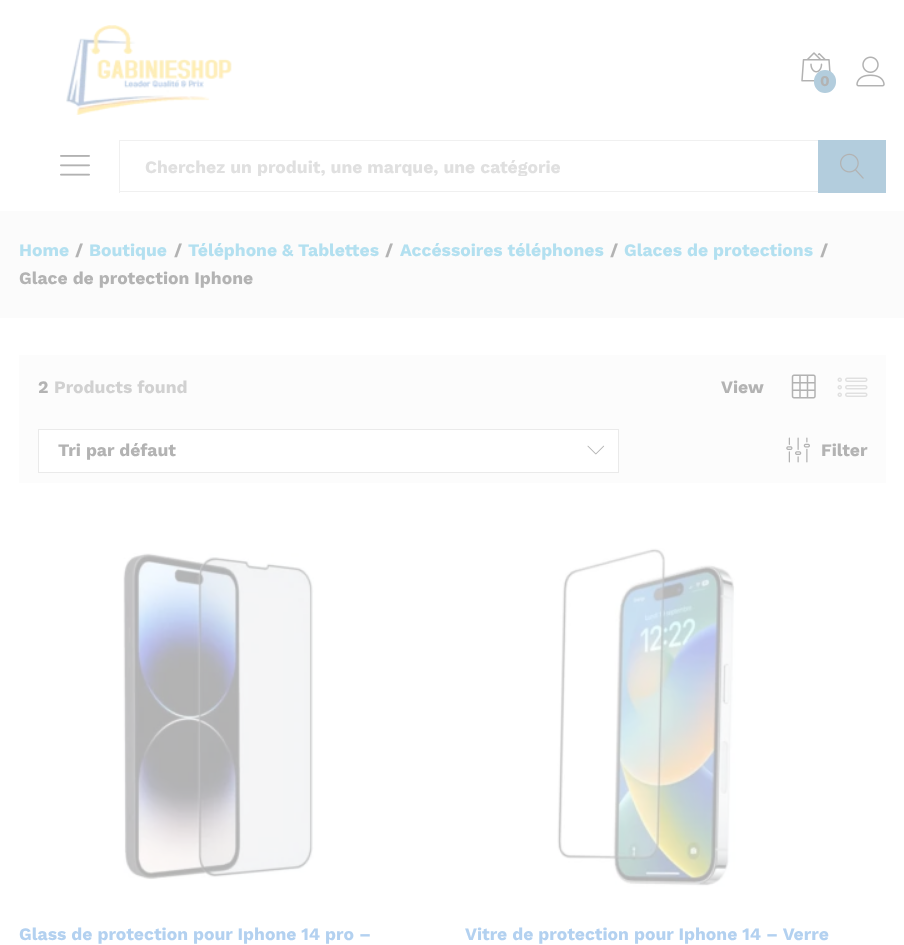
<?xml version="1.0" encoding="UTF-8"?>
<svg xmlns="http://www.w3.org/2000/svg" xmlns:xlink="http://www.w3.org/1999/xlink" width="904" height="945">
  <defs>
    <clipPath id="clip1"><rect x="145" y="156" width="648" height="20" /></clipPath>
  </defs>
  <rect width="100%" height="100%" fill="#ffffff" />
  <image x="66" y="25" width="166" height="90" xlink:href="image1.png" />
  <image x="801" y="52" width="30" height="30" xlink:href="image2.png" />
  <rect x="814" y="70" width="22" height="23" rx="11" fill="#b3cddd" />
  <image x="856" y="56" width="29" height="31" xlink:href="image3.png" />
  <image x="60" y="155" width="30" height="21" xlink:href="image4.png" />
  <rect x="119" y="140" width="699" height="1" fill="#f0f0f0" />
  <rect x="119" y="191" width="699" height="1" fill="#f0f0f0" />
  <rect x="119" y="140" width="1" height="53" fill="#f0f0f0" />
  <rect x="818" y="140" width="68" height="53" fill="#b3cddd" />
  <image x="840" y="153" width="24" height="26" xlink:href="image5.png" />
  <rect y="211" width="904" height="107" fill="#fbfbfb" />
  <rect x="19" y="355" width="867" height="128" fill="#fcfcfc" />
  <image x="791" y="374" width="25" height="25" xlink:href="image6.png" />
  <image x="837" y="377" width="31" height="20" xlink:href="image7.png" />
  <rect x="38.5" y="429.5" width="580" height="43" fill="#ffffff" stroke="#eaeaea" />
  <image x="587" y="445" width="18" height="10" xlink:href="image8.png" />
  <image x="786" y="437" width="24" height="26" xlink:href="image9.png" />
  <image x="123" y="553" width="191" height="327" xlink:href="image10.png" />
  <image x="557" y="548" width="179" height="339" xlink:href="image11.png" />
  <text x="820" y="86" style="font-family: Work Sans; font-size: 15px; font-weight: bold; fill: #b3b3b3">0</text>
  <g clip-path="url(#clip1)">
    <text x="145" y="173" style="font-family: Work Sans; font-size: 17.5px; font-weight: bold; fill: #e0e0e0">Cherchez un produit, une marque, une catégorie</text>
  </g>
  <text x="19" y="256" style="font-family: Work Sans; font-size: 17.5px; font-weight: bold; fill: #b3e0f0">Home</text>
  <text x="75" y="256" style="font-family: Work Sans; font-size: 17.5px; font-weight: bold; fill: #b3b3b3">/</text>
  <text x="89" y="256" style="font-family: Work Sans; font-size: 17.5px; font-weight: bold; fill: #b3e0f0">Boutique</text>
  <text x="174" y="256" style="font-family: Work Sans; font-size: 17.5px; font-weight: bold; fill: #b3b3b3">/</text>
  <text x="188" y="256" style="font-family: Work Sans; font-size: 17.5px; font-weight: bold; fill: #b3e0f0">Téléphone &amp; Tablettes</text>
  <text x="385" y="256" style="font-family: Work Sans; font-size: 17.5px; font-weight: bold; fill: #b3b3b3">/</text>
  <text x="400" y="256" style="font-family: Work Sans; font-size: 17.5px; font-weight: bold; fill: #b3e0f0">Accéssoires téléphones</text>
  <text x="610" y="256" style="font-family: Work Sans; font-size: 17.5px; font-weight: bold; fill: #b3b3b3">/</text>
  <text x="624" y="256" style="font-family: Work Sans; font-size: 17.5px; font-weight: bold; fill: #b3e0f0">Glaces de protections</text>
  <text x="820" y="256" style="font-family: Work Sans; font-size: 17.5px; font-weight: bold; fill: #b3b3b3">/</text>
  <text x="19" y="284" style="font-family: Work Sans; font-size: 17.5px; font-weight: bold; fill: #b3b3b3">Glace de protection Iphone</text>
  <text x="38" y="393" style="font-family: Work Sans; font-size: 17.5px; font-weight: bold; fill: #b3b3b3">2</text>
  <text x="54" y="393" style="font-family: Work Sans; font-size: 17.5px; font-weight: bold; fill: #d1d1d1">Products found</text>
  <text x="721" y="393" style="font-family: Work Sans; font-size: 17.5px; font-weight: bold; fill: #b3b3b3">View</text>
  <text x="58" y="456" style="font-family: Work Sans; font-size: 17.5px; font-weight: bold; fill: #b3b3b3">Tri par défaut</text>
  <text x="821" y="456" style="font-family: Work Sans; font-size: 17.5px; font-weight: bold; fill: #b3b3b3">Filter</text>
  <text x="19" y="940" style="font-family: Work Sans; font-size: 17.5px; font-weight: bold; fill: #b3d1f0">Glass de protection pour Iphone 14 pro –</text>
  <text x="465" y="940" style="font-family: Work Sans; font-size: 17.5px; font-weight: bold; fill: #b3d1f0">Vitre de protection pour Iphone 14 – Verre</text>
</svg>
